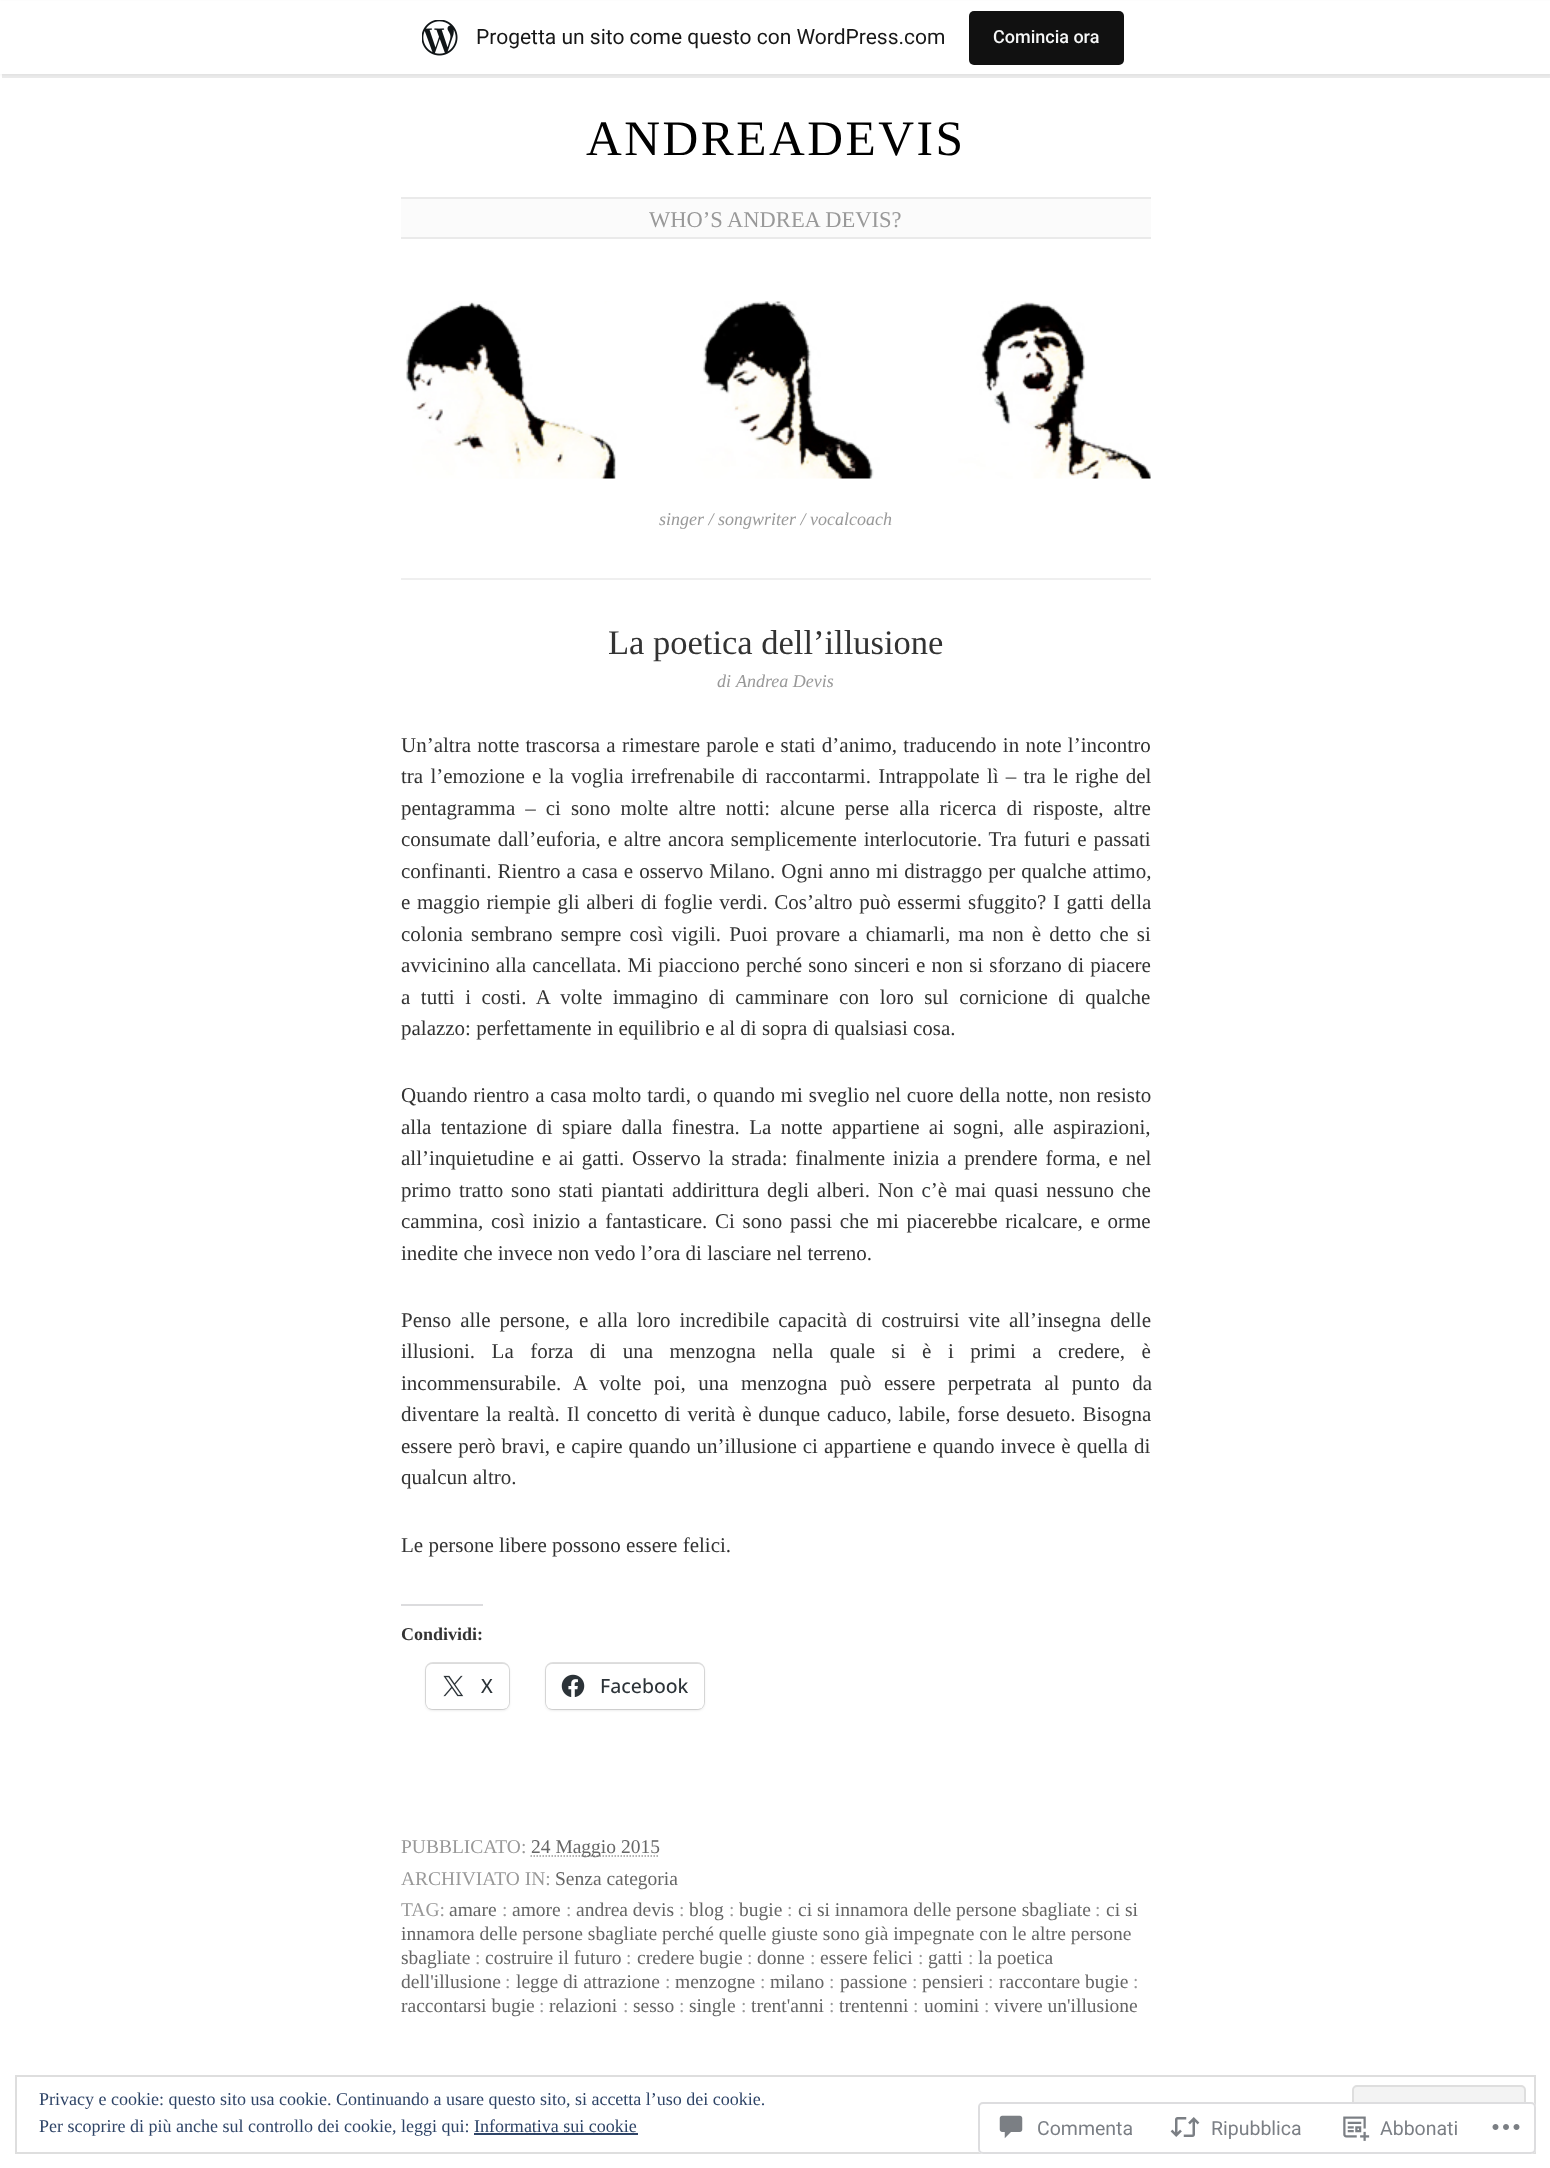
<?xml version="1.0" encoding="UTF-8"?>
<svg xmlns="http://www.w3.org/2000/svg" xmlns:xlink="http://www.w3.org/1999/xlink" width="1550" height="2168">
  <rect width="100%" height="100%" fill="#ffffff" />
  <rect y="2" width="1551" height="73" fill="#000000" fill-opacity="0.05" filter="blur(1.5px)" />
  <path d="M 2 74 v 4 h 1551 v -73 h -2 v 69 z" fill="#000000" fill-opacity="0.08" />
  <rect y="1" width="1550" height="73" fill="#ffffff" />
  <image x="422" y="20" width="36" height="36" xlink:href="image1.png" />
  <rect x="969" y="11" width="155" height="54" rx="5" fill="#111111" />
  <rect x="401" y="199" width="750" height="38" fill="#fbfbfb" />
  <rect x="401" y="197" width="750" height="2" fill="#eaeaea" />
  <rect x="401" y="237" width="750" height="2" fill="#eaeaea" />
  <image x="406" y="301" width="745" height="178" xlink:href="image2.png" />
  <rect x="401" y="578" width="750" height="2" fill="#efefef" />
  <rect x="401" y="1604" width="82" height="2" fill="#dcdcde" />
  <rect x="426" y="1663" width="83" height="46" rx="7" fill="none" stroke="#e0e0e0" stroke-width="2" />
  <rect x="426" y="1665" width="83" height="45" rx="6" fill="#000000" fill-opacity="0.12" filter="blur(1.5px)" />
  <rect x="426" y="1664" width="83" height="45" rx="6" fill="#ffffff" />
  <image x="443" y="1675" width="21" height="22" xlink:href="image3.png" />
  <rect x="546" y="1663" width="158" height="46" rx="7" fill="none" stroke="#e0e0e0" stroke-width="2" />
  <rect x="546" y="1665" width="158" height="45" rx="6" fill="#000000" fill-opacity="0.12" filter="blur(1.5px)" />
  <rect x="546" y="1664" width="158" height="45" rx="6" fill="#ffffff" />
  <image x="561" y="1674" width="24" height="23" xlink:href="image4.png" />
  <path d="M 530.5 1856 h 129" fill="none" stroke="#999999" stroke-width="1.5" stroke-dasharray="1.5 1.5" />
  <rect x="16" y="2076" width="1519" height="77" fill="none" stroke="#dedede" stroke-width="2" />
  <rect x="1353" y="2086" width="172" height="57" rx="4" fill="#f3f3f3" stroke="#dedede" stroke-width="2" />
  <rect x="474" y="2133" width="164" height="2" fill="#2e4467" />
  <rect x="978" y="2102" width="558" height="52" rx="5" fill="#ffffff" fill-opacity="0.98" />
  <rect x="979" y="2103" width="556" height="50" rx="4" fill="none" stroke="#dcdcde" stroke-opacity="0.98" stroke-width="2" />
  <image x="999" y="2115" width="24" height="24" xlink:href="image5.png" />
  <image x="1170" y="2117" width="30" height="20" xlink:href="image6.png" />
  <image x="1343" y="2116" width="27" height="25" xlink:href="image7.png" />
  <image x="1492" y="2124" width="28" height="6" xlink:href="image8.png" />
  <text x="476" y="44" style="font-family: Roboto; font-size: 21px; fill: #171717">Progetta un sito come questo con WordPress.com</text>
  <text x="993" y="43" style="font-family: Roboto; font-size: 18px; font-weight: 500; fill: #f6f7f7">Comincia ora</text>
  <text x="586" y="155" style="font-family: Liberation Serif; font-size: 49.5px; letter-spacing: 2.5px; fill: #000000">ANDREADEVIS</text>
  <text x="649" y="227" style="font-family: Liberation Serif; font-size: 22.5px; fill: #999999">WHO’S ANDREA DEVIS?</text>
  <text x="659" y="525" style="font-family: Liberation Serif; font-size: 18px; font-style: italic; fill: #999999">singer / songwriter / vocalcoach</text>
  <text x="608" y="654" style="font-family: Liberation Serif; font-size: 34.5px; fill: #333333">La poetica dell’illusione</text>
  <text x="717" y="687" style="font-family: Liberation Serif; font-size: 18px; font-style: italic; fill: #999999">di</text>
  <text x="736" y="687" style="font-family: Liberation Serif; font-size: 18px; font-style: italic; fill: #999999">Andrea Devis</text>
  <text x="401" y="752" word-spacing="1" style="font-family: Liberation Serif; font-size: 21px; fill: #333333">Un’altra notte trascorsa a rimestare parole e stati d’animo, traducendo in note l’incontro</text>
  <text x="401" y="783" word-spacing="2" style="font-family: Liberation Serif; font-size: 21px; fill: #333333">tra l’emozione e la voglia irrefrenabile di raccontarmi. Intrappolate lì – tra le righe del</text>
  <text x="401" y="815" word-spacing="4.75" style="font-family: Liberation Serif; font-size: 21px; fill: #333333">pentagramma – ci sono molte altre notti: alcune perse alla ricerca di risposte, altre</text>
  <text x="401" y="846" word-spacing="1.6" style="font-family: Liberation Serif; font-size: 21px; fill: #333333">consumate dall’euforia, e altre ancora semplicemente interlocutorie. Tra futuri e passati</text>
  <text x="401" y="878" word-spacing="0.75" style="font-family: Liberation Serif; font-size: 21px; fill: #333333">confinanti. Rientro a casa e osservo Milano. Ogni anno mi distraggo per qualche attimo,</text>
  <text x="401" y="909" word-spacing="1.4" style="font-family: Liberation Serif; font-size: 21px; fill: #333333">e maggio riempie gli alberi di foglie verdi. Cos’altro può essermi sfuggito? I gatti della</text>
  <text x="401" y="941" word-spacing="2.9" style="font-family: Liberation Serif; font-size: 21px; fill: #333333">colonia sembrano sempre così vigili. Puoi provare a chiamarli, ma non è detto che si</text>
  <text x="401" y="972" word-spacing="0.9" style="font-family: Liberation Serif; font-size: 21px; fill: #333333">avvicinino alla cancellata. Mi piacciono perché sono sinceri e non si sforzano di piacere</text>
  <text x="401" y="1004" word-spacing="5.25" style="font-family: Liberation Serif; font-size: 21px; fill: #333333">a tutti i costi. A volte immagino di camminare con loro sul cornicione di qualche</text>
  <text x="401" y="1035" style="font-family: Liberation Serif; font-size: 21px; fill: #333333">palazzo: perfettamente in equilibrio e al di sopra di qualsiasi cosa.</text>
  <text x="401" y="1102" word-spacing="0.6" style="font-family: Liberation Serif; font-size: 21px; fill: #333333">Quando rientro a casa molto tardi, o quando mi sveglio nel cuore della notte, non resisto</text>
  <text x="401" y="1134" word-spacing="4.1" style="font-family: Liberation Serif; font-size: 21px; fill: #333333">alla tentazione di spiare dalla finestra. La notte appartiene ai sogni, alle aspirazioni,</text>
  <text x="401" y="1165" word-spacing="2.5" style="font-family: Liberation Serif; font-size: 21px; fill: #333333">all’inquietudine e ai gatti. Osservo la strada: finalmente inizia a prendere forma, e nel</text>
  <text x="401" y="1197" word-spacing="2.5" style="font-family: Liberation Serif; font-size: 21px; fill: #333333">primo tratto sono stati piantati addirittura degli alberi. Non c’è mai quasi nessuno che</text>
  <text x="401" y="1228" word-spacing="2.5" style="font-family: Liberation Serif; font-size: 21px; fill: #333333">cammina, così inizio a fantasticare. Ci sono passi che mi piacerebbe ricalcare, e orme</text>
  <text x="401" y="1260" style="font-family: Liberation Serif; font-size: 21px; fill: #333333">inedite che invece non vedo l’ora di lasciare nel terreno.</text>
  <text x="401" y="1327" word-spacing="3.75" style="font-family: Liberation Serif; font-size: 21px; fill: #333333">Penso alle persone, e alla loro incredibile capacità di costruirsi vite all’insegna delle</text>
  <text x="401" y="1358" word-spacing="11.25" style="font-family: Liberation Serif; font-size: 21px; fill: #333333">illusioni. La forza di una menzogna nella quale si è i primi a credere, è</text>
  <text x="401" y="1390" word-spacing="7.25" style="font-family: Liberation Serif; font-size: 21px; fill: #333333">incommensurabile. A volte poi, una menzogna può essere perpetrata al punto da</text>
  <text x="401" y="1421" word-spacing="1.6" style="font-family: Liberation Serif; font-size: 21px; fill: #333333">diventare la realtà. Il concetto di verità è dunque caduco, labile, forse desueto. Bisogna</text>
  <text x="401" y="1453" word-spacing="0.75" style="font-family: Liberation Serif; font-size: 21px; fill: #333333">essere però bravi, e capire quando un’illusione ci appartiene e quando invece è quella di</text>
  <text x="401" y="1484" style="font-family: Liberation Serif; font-size: 21px; fill: #333333">qualcun altro.</text>
  <text x="401" y="1552" style="font-family: Liberation Serif; font-size: 21px; fill: #333333">Le persone libere possono essere felici.</text>
  <text x="401" y="1640" style="font-family: Liberation Serif; font-size: 18px; font-weight: bold; fill: #333333">Condividi:</text>
  <text x="481" y="1693" style="font-family: Open Sans; font-size: 19.5px; font-weight: 500; fill: #2c3338">X</text>
  <text x="600" y="1693" style="font-family: Open Sans; font-size: 19.5px; font-weight: 500; fill: #2c3338">Facebook</text>
  <text x="401" y="1853" style="font-family: Liberation Serif; font-size: 19.5px; fill: #999999">PUBBLICATO:</text>
  <text x="531" y="1853" style="font-family: Liberation Serif; font-size: 19.5px; fill: #666666">24 Maggio 2015</text>
  <text x="401" y="1885" style="font-family: Liberation Serif; font-size: 19.5px; fill: #999999">ARCHIVIATO IN:</text>
  <text x="555" y="1885" style="font-family: Liberation Serif; font-size: 19.5px; fill: #666666">Senza categoria</text>
  <text x="401" y="1916" style="font-family: Liberation Serif; font-size: 19.5px; fill: #999999">TAG:</text>
  <text x="449" y="1916" style="font-family: Liberation Serif; font-size: 19.5px; fill: #666666">amare</text>
  <text x="502" y="1916" style="font-family: Liberation Serif; font-size: 19.5px; fill: #999999">:</text>
  <text x="512" y="1916" style="font-family: Liberation Serif; font-size: 19.5px; fill: #666666">amore</text>
  <text x="566" y="1916" style="font-family: Liberation Serif; font-size: 19.5px; fill: #999999">:</text>
  <text x="576" y="1916" style="font-family: Liberation Serif; font-size: 19.5px; fill: #666666">andrea devis</text>
  <text x="679" y="1916" style="font-family: Liberation Serif; font-size: 19.5px; fill: #999999">:</text>
  <text x="689" y="1916" style="font-family: Liberation Serif; font-size: 19.5px; fill: #666666">blog</text>
  <text x="729" y="1916" style="font-family: Liberation Serif; font-size: 19.5px; fill: #999999">:</text>
  <text x="739" y="1916" style="font-family: Liberation Serif; font-size: 19.5px; fill: #666666">bugie</text>
  <text x="787" y="1916" style="font-family: Liberation Serif; font-size: 19.5px; fill: #999999">:</text>
  <text x="798" y="1916" style="font-family: Liberation Serif; font-size: 19.5px; fill: #666666">ci si innamora delle persone sbagliate</text>
  <text x="1095" y="1916" style="font-family: Liberation Serif; font-size: 19.5px; fill: #999999">:</text>
  <text x="1106" y="1916" style="font-family: Liberation Serif; font-size: 19.5px; fill: #666666">ci si</text>
  <text x="401" y="1940" style="font-family: Liberation Serif; font-size: 19.5px; fill: #666666">innamora delle persone sbagliate perché quelle giuste sono già impegnate con le altre persone</text>
  <text x="401" y="1964" style="font-family: Liberation Serif; font-size: 19.5px; fill: #666666">sbagliate</text>
  <text x="475" y="1964" style="font-family: Liberation Serif; font-size: 19.5px; fill: #999999">:</text>
  <text x="485" y="1964" style="font-family: Liberation Serif; font-size: 19.5px; fill: #666666">costruire il futuro</text>
  <text x="626" y="1964" style="font-family: Liberation Serif; font-size: 19.5px; fill: #999999">:</text>
  <text x="637" y="1964" style="font-family: Liberation Serif; font-size: 19.5px; fill: #666666">credere bugie</text>
  <text x="747" y="1964" style="font-family: Liberation Serif; font-size: 19.5px; fill: #999999">:</text>
  <text x="757" y="1964" style="font-family: Liberation Serif; font-size: 19.5px; fill: #666666">donne</text>
  <text x="810" y="1964" style="font-family: Liberation Serif; font-size: 19.5px; fill: #999999">:</text>
  <text x="820" y="1964" style="font-family: Liberation Serif; font-size: 19.5px; fill: #666666">essere felici</text>
  <text x="918" y="1964" style="font-family: Liberation Serif; font-size: 19.5px; fill: #999999">:</text>
  <text x="928" y="1964" style="font-family: Liberation Serif; font-size: 19.5px; fill: #666666">gatti</text>
  <text x="968" y="1964" style="font-family: Liberation Serif; font-size: 19.5px; fill: #999999">:</text>
  <text x="978" y="1964" style="font-family: Liberation Serif; font-size: 19.5px; fill: #666666">la poetica</text>
  <text x="401" y="1988" style="font-family: Liberation Serif; font-size: 19.5px; fill: #666666">dell'illusione</text>
  <text x="505" y="1988" style="font-family: Liberation Serif; font-size: 19.5px; fill: #999999">:</text>
  <text x="516" y="1988" style="font-family: Liberation Serif; font-size: 19.5px; fill: #666666">legge di attrazione</text>
  <text x="665" y="1988" style="font-family: Liberation Serif; font-size: 19.5px; fill: #999999">:</text>
  <text x="675" y="1988" style="font-family: Liberation Serif; font-size: 19.5px; fill: #666666">menzogne</text>
  <text x="760" y="1988" style="font-family: Liberation Serif; font-size: 19.5px; fill: #999999">:</text>
  <text x="770" y="1988" style="font-family: Liberation Serif; font-size: 19.5px; fill: #666666">milano</text>
  <text x="829" y="1988" style="font-family: Liberation Serif; font-size: 19.5px; fill: #999999">:</text>
  <text x="840" y="1988" style="font-family: Liberation Serif; font-size: 19.5px; fill: #666666">passione</text>
  <text x="912" y="1988" style="font-family: Liberation Serif; font-size: 19.5px; fill: #999999">:</text>
  <text x="922" y="1988" style="font-family: Liberation Serif; font-size: 19.5px; fill: #666666">pensieri</text>
  <text x="988" y="1988" style="font-family: Liberation Serif; font-size: 19.5px; fill: #999999">:</text>
  <text x="999" y="1988" style="font-family: Liberation Serif; font-size: 19.5px; fill: #666666">raccontare bugie</text>
  <text x="1133" y="1988" style="font-family: Liberation Serif; font-size: 19.5px; fill: #999999">:</text>
  <text x="401" y="2012" style="font-family: Liberation Serif; font-size: 19.5px; fill: #666666">raccontarsi bugie</text>
  <text x="539" y="2012" style="font-family: Liberation Serif; font-size: 19.5px; fill: #999999">:</text>
  <text x="549" y="2012" style="font-family: Liberation Serif; font-size: 19.5px; fill: #666666">relazioni</text>
  <text x="623" y="2012" style="font-family: Liberation Serif; font-size: 19.5px; fill: #999999">:</text>
  <text x="633" y="2012" style="font-family: Liberation Serif; font-size: 19.5px; fill: #666666">sesso</text>
  <text x="679" y="2012" style="font-family: Liberation Serif; font-size: 19.5px; fill: #999999">:</text>
  <text x="689" y="2012" style="font-family: Liberation Serif; font-size: 19.5px; fill: #666666">single</text>
  <text x="741" y="2012" style="font-family: Liberation Serif; font-size: 19.5px; fill: #999999">:</text>
  <text x="751" y="2012" style="font-family: Liberation Serif; font-size: 19.5px; fill: #666666">trent'anni</text>
  <text x="829" y="2012" style="font-family: Liberation Serif; font-size: 19.5px; fill: #999999">:</text>
  <text x="839" y="2012" style="font-family: Liberation Serif; font-size: 19.5px; fill: #666666">trentenni</text>
  <text x="913" y="2012" style="font-family: Liberation Serif; font-size: 19.5px; fill: #999999">:</text>
  <text x="924" y="2012" style="font-family: Liberation Serif; font-size: 19.5px; fill: #666666">uomini</text>
  <text x="984" y="2012" style="font-family: Liberation Serif; font-size: 19.5px; fill: #999999">:</text>
  <text x="994" y="2012" style="font-family: Liberation Serif; font-size: 19.5px; fill: #666666">vivere un'illusione</text>
  <text x="39" y="2105" style="font-family: Liberation Serif; font-size: 18px; fill: #2e4467">Privacy e cookie: questo sito usa cookie. Continuando a usare questo sito, si accetta l’uso dei cookie.</text>
  <text x="39" y="2132" style="font-family: Liberation Serif; font-size: 18px; fill: #2e4467">Per scoprire di più anche sul controllo dei cookie, leggi qui: Informativa sui cookie</text>
  <text x="1037" y="2135" style="font-family: Roboto; font-size: 19.5px; fill: #7b7f85">Commenta</text>
  <text x="1211" y="2135" style="font-family: Roboto; font-size: 19.5px; fill: #7b7f85">Ripubblica</text>
  <text x="1380" y="2135" style="font-family: Roboto; font-size: 19.5px; fill: #7b7f85">Abbonati</text>
</svg>
